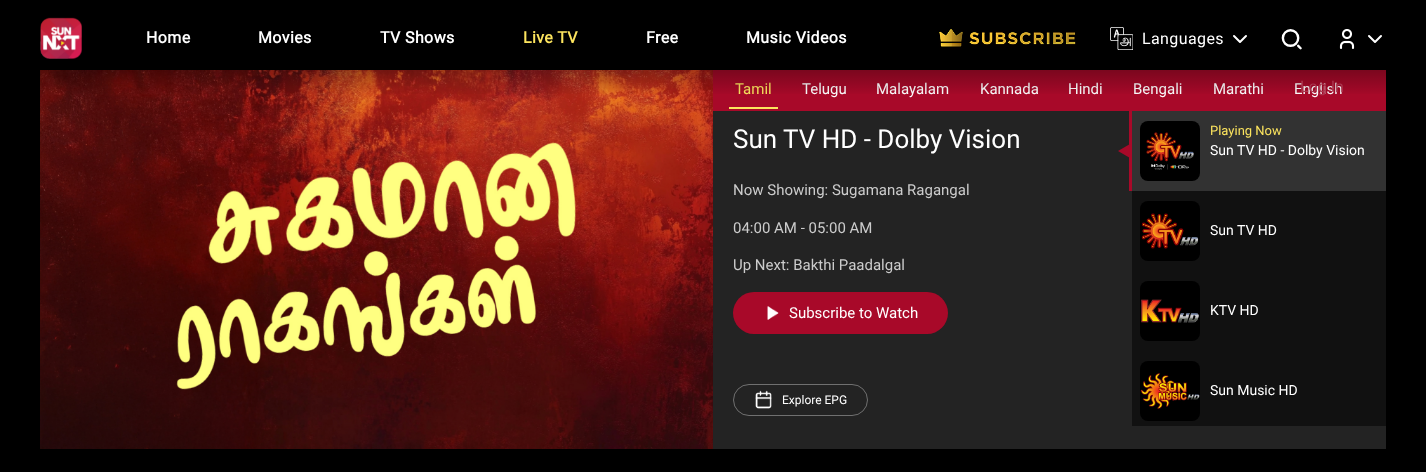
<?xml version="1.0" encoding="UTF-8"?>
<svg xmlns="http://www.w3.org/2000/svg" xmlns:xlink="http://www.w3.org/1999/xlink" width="1426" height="472">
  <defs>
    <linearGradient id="g1" gradientUnits="userSpaceOnUse" x1="713" y1="0" x2="713" y2="96"><stop offset="0" stop-color="#000000" stop-opacity="0.9" /><stop offset="0.5" stop-color="#000000" stop-opacity="0.5" /><stop offset="1" stop-color="#000000" stop-opacity="0" /></linearGradient>
  </defs>
  <rect width="100%" height="100%" fill="#000000" />
  <image x="40" y="17" width="42" height="42" xlink:href="image1.png" />
  <image x="939" y="29" width="137" height="21" xlink:href="image2.png" />
  <image x="1110" y="27" width="23" height="23" xlink:href="image3.png" />
  <path d="M 1234 36 l 6 6 l 6 -6" fill="none" stroke="#ffffff" stroke-width="2" stroke-linecap="round" stroke-linejoin="round" />
  <image x="1281" y="29" width="21" height="21" xlink:href="image4.png" />
  <image x="1339" y="29" width="16" height="20" xlink:href="image5.png" />
  <path d="M 1369 36 l 6 6 l 6 -6" fill="none" stroke="#ffffff" stroke-width="2" stroke-linecap="round" stroke-linejoin="round" />
  <image x="40" y="70" width="673" height="379" xlink:href="image6.png" />
  <rect x="713" y="111" width="673" height="338" fill="#232323" />
  <rect x="713" y="70" width="673" height="41" fill="#a80929" />
  <rect x="729" y="107" width="49" height="2" fill="#fce45e" />
  <rect x="1132" y="111" width="254" height="80" fill="#323232" />
  <rect x="1129" y="111" width="3" height="80" fill="#a80929" />
  <rect x="1140" y="121" width="60" height="60" rx="8" fill="#000000" />
  <image x="1146" y="132" width="48" height="38" xlink:href="image7.png" />
  <path d="M 1130 144 v 14 l -12 -7 z" fill="#a80929" />
  <rect x="1132" y="191" width="254" height="235" fill="#111111" />
  <rect x="1140" y="201" width="60" height="60" rx="8" fill="#000000" />
  <image x="1141" y="213" width="58" height="36" xlink:href="image8.png" />
  <rect x="1140" y="281" width="60" height="60" rx="8" fill="#000000" />
  <image x="1141" y="299" width="58" height="24" xlink:href="image9.png" />
  <rect x="1140" y="361" width="60" height="60" rx="8" fill="#000000" />
  <image x="1140" y="373" width="60" height="36" xlink:href="image10.png" />
  <rect x="733" y="292" width="215" height="42" rx="21" fill="#a80929" />
  <image x="767" y="306" width="12" height="14" xlink:href="image11.png" />
  <rect x="733.5" y="384.5" width="134" height="31" rx="15.5" fill="none" stroke="#707070" />
  <image x="755" y="390" width="17" height="19" xlink:href="image12.png" />
  <text x="146" y="43" style="font-family: Roboto; font-size: 16px; font-weight: bold; letter-spacing: 0.4px; fill: #ffffff">Home</text>
  <text x="258" y="43" style="font-family: Roboto; font-size: 16px; font-weight: bold; letter-spacing: 0.4px; fill: #ffffff">Movies</text>
  <text x="380" y="43" style="font-family: Roboto; font-size: 16px; font-weight: bold; letter-spacing: 0.4px; fill: #ffffff">TV Shows</text>
  <text x="523" y="43" style="font-family: Roboto; font-size: 16px; font-weight: bold; letter-spacing: 0.4px; fill: #fce45e">Live TV</text>
  <text x="646" y="43" style="font-family: Roboto; font-size: 16px; font-weight: bold; letter-spacing: 0.4px; fill: #ffffff">Free</text>
  <text x="746" y="43" style="font-family: Roboto; font-size: 16px; font-weight: bold; letter-spacing: 0.4px; fill: #ffffff">Music Videos</text>
  <text x="1142" y="44" style="font-family: Roboto; font-size: 16px; letter-spacing: 0.4px; fill: #ffffff">Languages</text>
  <text x="735" y="94" style="font-family: Roboto; font-size: 15px; fill: #fce45e">Tamil</text>
  <text x="802" y="94" style="font-family: Roboto; font-size: 15px; fill: #ffffff">Telugu</text>
  <text x="876" y="94" style="font-family: Roboto; font-size: 15px; fill: #ffffff">Malayalam</text>
  <text x="980" y="94" style="font-family: Roboto; font-size: 15px; fill: #ffffff">Kannada</text>
  <text x="1068" y="94" style="font-family: Roboto; font-size: 15px; fill: #ffffff">Hindi</text>
  <text x="1133" y="94" style="font-family: Roboto; font-size: 15px; fill: #ffffff">Bengali</text>
  <text x="1213" y="94" style="font-family: Roboto; font-size: 15px; fill: #ffffff">Marathi</text>
  <text x="1294" y="94" style="font-family: Roboto; font-size: 15px; fill: #ffffff">English</text>
  <rect x="40" y="70" width="1346" height="24" fill="url(#g1)" />
  <text x="1300" y="92" style="font-family: Roboto; font-size: 16px; fill: #aa364e">Log In</text>
  <text x="1210" y="135" style="font-family: Roboto; font-size: 13px; fill: #fce45e">Playing Now</text>
  <text x="1210" y="155" style="font-family: Roboto; font-size: 14px; fill: #ffffff">Sun TV HD - Dolby Vision</text>
  <text x="1210" y="235" style="font-family: Roboto; font-size: 14px; fill: #ffffff">Sun TV HD</text>
  <text x="1210" y="315" style="font-family: Roboto; font-size: 14px; fill: #ffffff">KTV HD</text>
  <text x="1210" y="395" style="font-family: Roboto; font-size: 14px; fill: #ffffff">Sun Music HD</text>
  <text x="733" y="148" style="font-family: Roboto; font-size: 26px; fill: #ffffff">Sun TV HD - Dolby Vision</text>
  <text x="733" y="195" style="font-family: Roboto; font-size: 15px; fill: #cccccc">Now Showing: Sugamana Ragangal</text>
  <text x="733" y="233" style="font-family: Roboto; font-size: 15px; fill: #cccccc">04:00 AM - 05:00 AM</text>
  <text x="733" y="270" style="font-family: Roboto; font-size: 15px; fill: #cccccc">Up Next: Bakthi Paadalgal</text>
  <text x="789" y="318" style="font-family: Roboto; font-size: 15px; fill: #ffffff">Subscribe to Watch</text>
  <text x="782" y="404" style="font-family: Roboto; font-size: 12px; fill: #ffffff">Explore EPG</text>
</svg>
